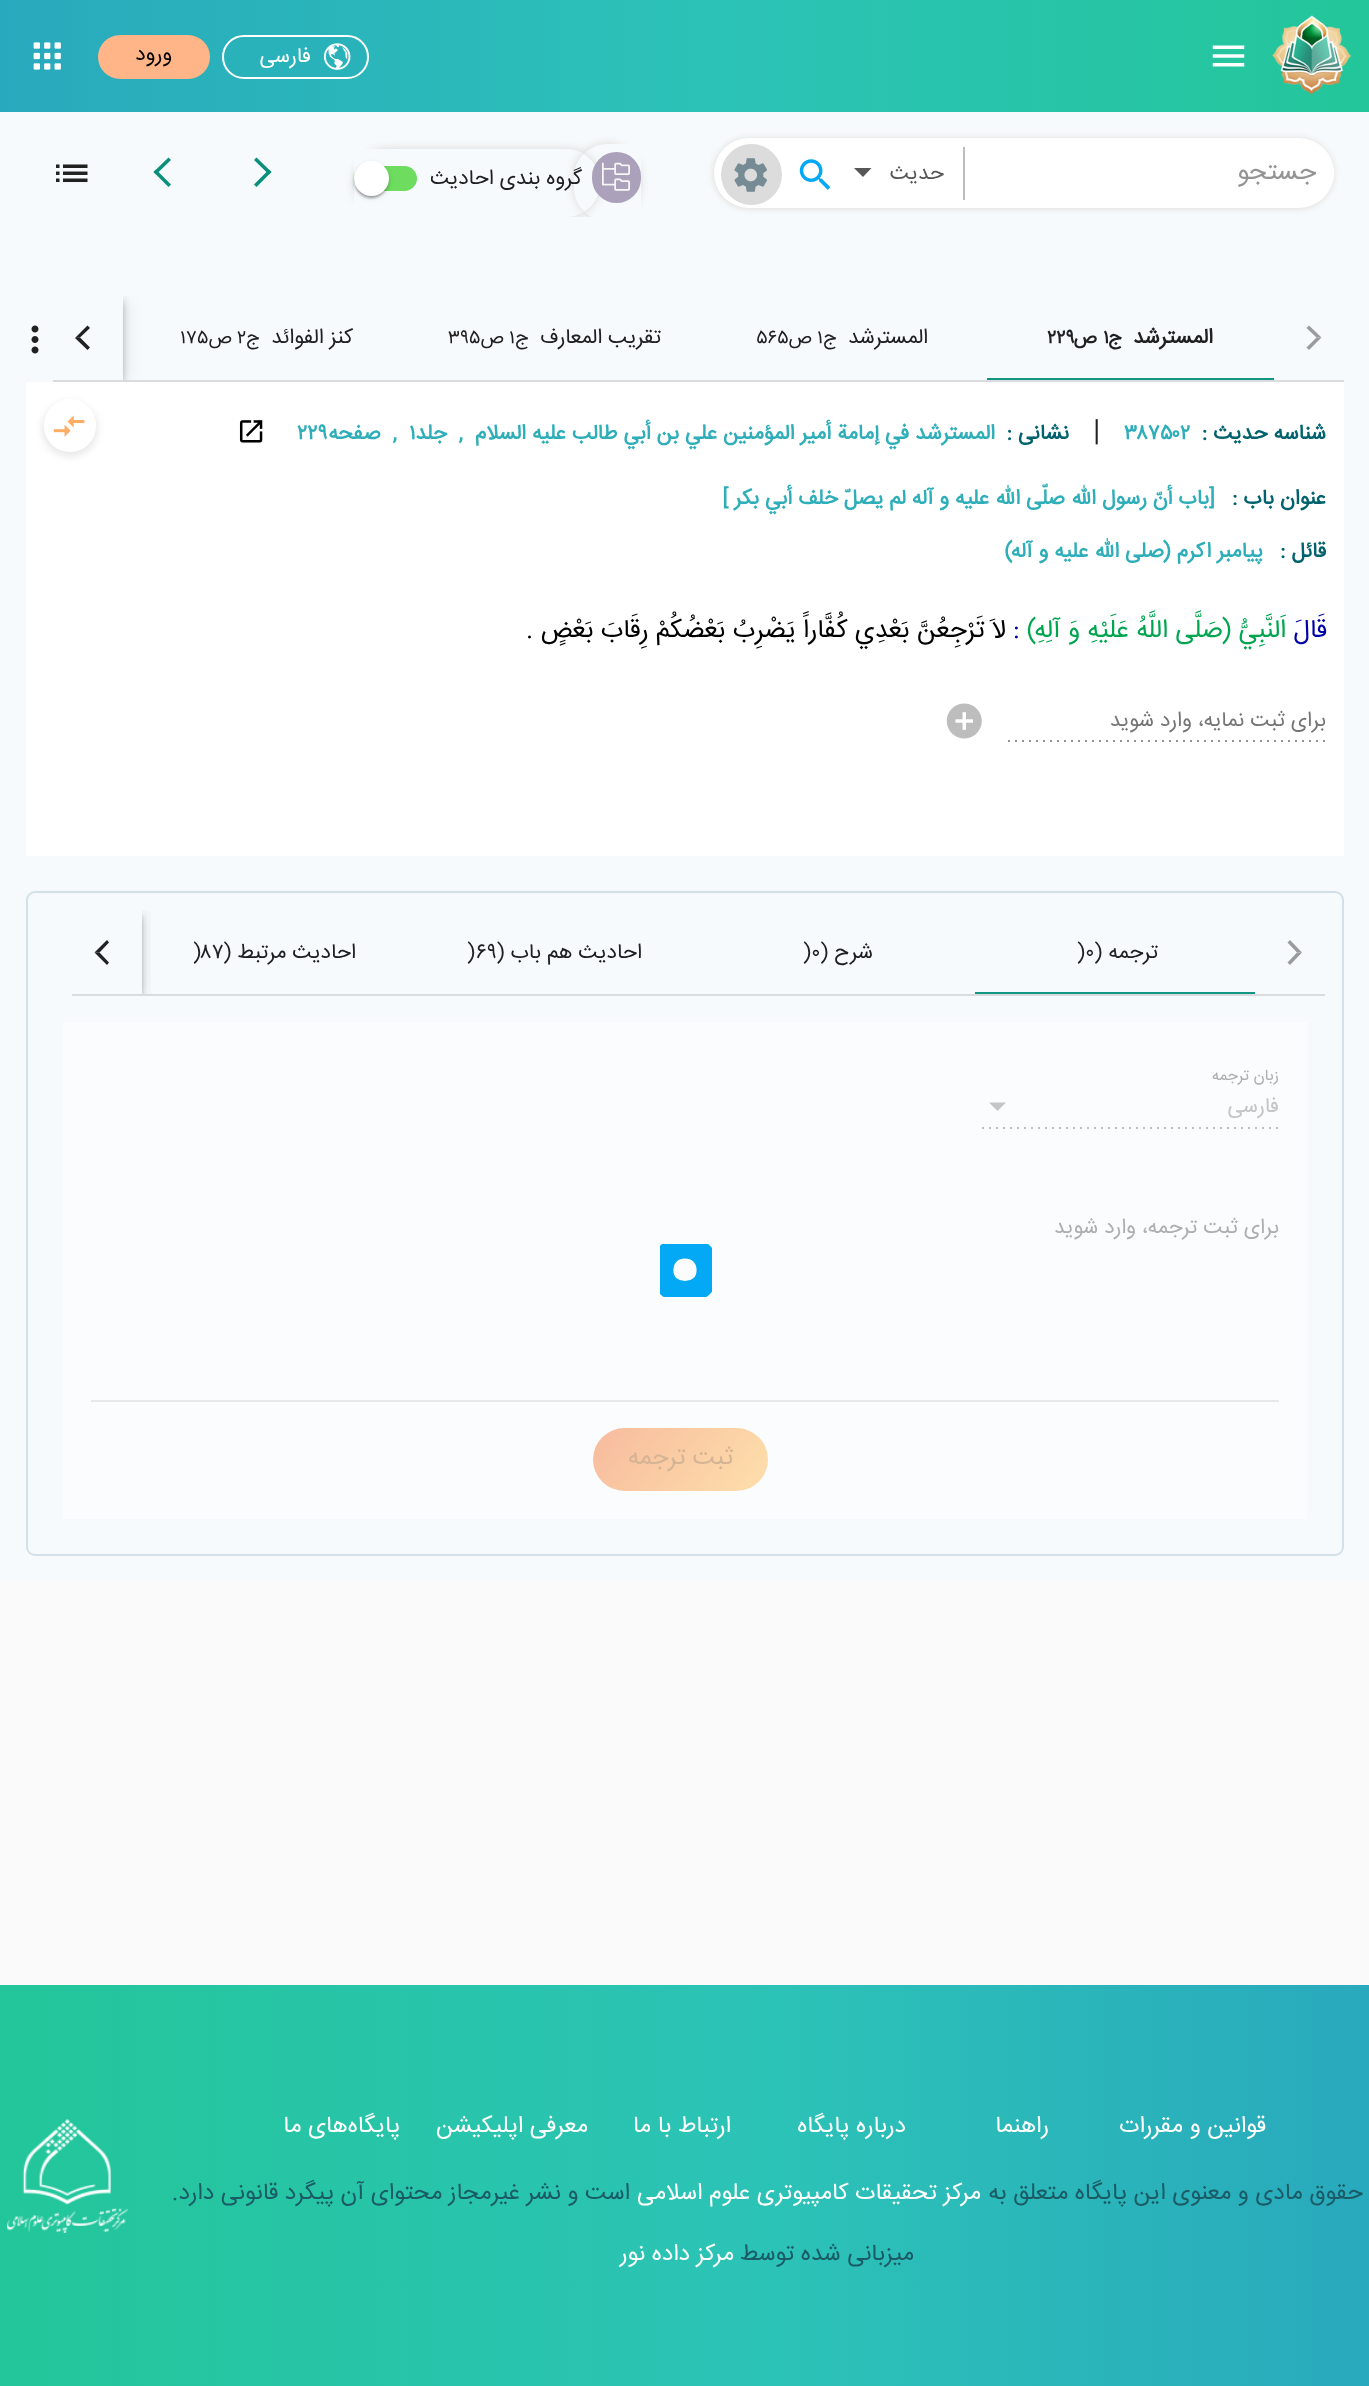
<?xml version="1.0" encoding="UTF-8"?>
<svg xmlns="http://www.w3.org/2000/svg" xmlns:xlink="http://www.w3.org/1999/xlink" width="1369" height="2386">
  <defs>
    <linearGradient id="g1" gradientUnits="userSpaceOnUse" x1="0" y1="56" x2="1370" y2="56"><stop offset="0" stop-color="#29a9bd" /><stop offset="0.53" stop-color="#2cc3b7" /><stop offset="1" stop-color="#23c69a" /></linearGradient>
    <clipPath id="clip1"><rect x="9" y="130" width="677" height="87" /></clipPath>
    <clipPath id="clip2"><path d="M 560 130 h 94 v 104 h -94 z m 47.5 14 h 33.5 v 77 h -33.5 c -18.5 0 -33.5 -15 -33.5 -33.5 v -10 c 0 -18.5 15 -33.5 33.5 -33.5 z" clip-rule="evenodd" /></clipPath>
    <clipPath id="clip3"><path d="M 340 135 h 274 v 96 h -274 z m 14 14 h 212 c 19 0 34 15 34 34 c 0 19 -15 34 -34 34 h -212 z" clip-rule="evenodd" /></clipPath>
    <clipPath id="clip4"><rect x="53" y="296" width="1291" height="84" /></clipPath>
    <clipPath id="clip5"><path d="M 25 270 h 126 v 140 h -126 z m 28 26 h 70 v 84 h -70 z" clip-rule="evenodd" /></clipPath>
    <clipPath id="clip6"><path d="M 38 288 h 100 v 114 h -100 z m 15 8 h 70 v 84 h -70 z" clip-rule="evenodd" /></clipPath>
    <clipPath id="clip7"><path d="M 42 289 h 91 v 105 h -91 z m 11 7 h 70 v 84 h -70 z" clip-rule="evenodd" /></clipPath>
    <clipPath id="clip8"><rect x="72" y="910" width="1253" height="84" /></clipPath>
    <clipPath id="clip9"><rect x="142" y="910" width="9" height="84" /></clipPath>
    <clipPath id="clip10"><rect x="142" y="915" width="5" height="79" /></clipPath>
    <clipPath id="clip11"><rect x="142" y="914" width="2" height="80" /></clipPath>
    <linearGradient id="g2" gradientUnits="userSpaceOnUse" x1="611" y1="1405" x2="750" y2="1514"><stop offset="0" stop-color="#f7bb9e" /><stop offset="1" stop-color="#fedfab" /></linearGradient>
    <clipPath id="clip12"><rect x="660" y="1244" width="52" height="53" /></clipPath>
    <linearGradient id="g3" gradientUnits="userSpaceOnUse" x1="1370" y1="2186" x2="0" y2="2186"><stop offset="0" stop-color="#29a9bd" /><stop offset="0.44" stop-color="#2cc3b7" /><stop offset="1" stop-color="#23c69a" /></linearGradient>
    <clipPath id="clip13"><rect x="431" y="158" width="152" height="42" /></clipPath>
  </defs>
  <rect width="100%" height="100%" fill="#ffffff" />
  <rect width="1369" height="112" fill="url(#g1)" />
  <image x="1272" y="15" width="79" height="80" xlink:href="image1.png" />
  <image x="1212" y="45" width="33" height="22" xlink:href="image2.png" />
  <rect x="223" y="36" width="145" height="42" rx="21" fill="#2ab2bb" stroke="#ffffff" stroke-width="2" />
  <image x="323" y="43" width="28" height="27" xlink:href="image3.png" />
  <rect x="98" y="35" width="112" height="44" rx="22" fill="#ffb587" />
  <image x="33" y="42" width="28" height="28" xlink:href="image4.png" />
  <rect y="1582" width="1369" height="403" fill="#fafafa" />
  <rect y="112" width="1369" height="1470" fill="#f7fafc" />
  <rect x="63" y="1022" width="1244" height="497" fill="#fafcfd" />
  <rect x="712" y="137" width="623" height="73" rx="36.5" fill="#e4e4e4" filter="blur(2.5px)" />
  <rect x="714" y="138" width="620" height="70" rx="35" fill="#ffffff" />
  <path d="M 964 147 h 343.5 c 14.5 0 26.5 12 26.5 26.5 c 0 14.5 -12 26.5 -26.5 26.5 h -343.5 z" fill="#ffffff" />
  <rect x="963" y="147" width="2" height="53" fill="#bdbdbd" />
  <path d="M 854 168 h 17.5 l -8.5 9 z" fill="#575756" />
  <image x="799" y="159" width="32" height="31" xlink:href="image5.png" />
  <circle cx="751.5" cy="174.5" r="30.5" fill="#dcdcdc" />
  <image x="734" y="158" width="33" height="34" xlink:href="image6.png" />
  <g clip-path="url(#clip1)">
    <g clip-path="url(#clip2)">
      <rect x="572" y="142" width="70" height="80" rx="35" fill="#e2e2e2" filter="blur(3.5px)" />
    </g>
  </g>
  <g clip-path="url(#clip1)">
    <g clip-path="url(#clip3)">
      <rect x="352" y="147" width="250" height="72" rx="36" fill="#e2e2e2" filter="blur(3.5px)" />
    </g>
  </g>
  <rect x="592" y="152" width="49" height="51" rx="24.5" fill="#aca1ba" />
  <image x="602" y="162" width="28" height="29" xlink:href="image7.png" />
  <rect x="354" y="166" width="63" height="25" rx="12.5" fill="#6edc5f" />
  <rect x="354" y="163" width="35" height="35" rx="17.5" fill="#000000" fill-opacity="0.12" filter="blur(2.5px)" />
  <rect x="354" y="163" width="35" height="35" rx="17.5" fill="#000000" fill-opacity="0.14" filter="blur(1px)" />
  <rect x="355" y="166" width="32" height="32" rx="16" fill="#000000" fill-opacity="0.2" filter="blur(1px)" />
  <circle cx="371.5" cy="178.5" r="17.5" fill="#ffffff" />
  <path d="M 256.5 157.5 l 15 14.5 l -2.5 2.5 l -15 -14.5 z" fill="#098f7c" />
  <path d="M 269 169.5 l 2.5 2.5 l -15 15 l -2.5 -2.5 z" fill="#098f7c" />
  <path d="M 168.5 187 l -15 -15 l 2.5 -2.5 l 15 15 z" fill="#098f7c" />
  <path d="M 156 174.5 l -2.5 -2.5 l 15 -14.5 l 2.5 2.5 z" fill="#098f7c" />
  <image x="56" y="164" width="32" height="19" xlink:href="image8.png" />
  <rect x="53" y="380" width="1291" height="2" fill="#d9dcde" />
  <path d="M 1309 325.5 l 12.5 12 h -5 l -10 -9.5 z" fill="#999b9c" />
  <path d="M 1321.5 337.5 l -12.5 12.5 l -2.5 -2.5 l 10 -10 z" fill="#999b9c" />
  <rect x="987" y="378" width="287" height="2" fill="#119682" />
  <rect x="26" y="382" width="1318" height="474" fill="#ffffff" />
  <rect x="42" y="401" width="56" height="56" rx="28" fill="#eae9e9" filter="blur(3.5px)" />
  <rect x="44" y="399" width="52" height="53" rx="26" fill="#ffffff" />
  <g clip-path="url(#clip4)">
    <g clip-path="url(#clip5)">
      <rect x="53" y="298" width="70" height="84" fill="#000000" fill-opacity="0.12" filter="blur(9px)" />
    </g>
  </g>
  <g clip-path="url(#clip4)">
    <g clip-path="url(#clip6)">
      <rect x="53" y="303" width="70" height="84" fill="#000000" fill-opacity="0.14" filter="blur(4.5px)" />
    </g>
  </g>
  <g clip-path="url(#clip4)">
    <g clip-path="url(#clip7)">
      <rect x="54" y="301" width="67" height="81" fill="#000000" fill-opacity="0.2" filter="blur(3.5px)" />
    </g>
  </g>
  <path d="M 87.5 350 l -12.5 -12 l 5 -0.5 l 10 10 z" fill="#202121" />
  <path d="M 75 338 l 12.5 -12.5 l 2.5 2.5 l -10 9.5 z" fill="#000000" fill-opacity="0.87" />
  <image x="239" y="420" width="24" height="23" xlink:href="image9.png" />
  <image x="53" y="415" width="32" height="22" xlink:href="image10.png" />
  <image x="1008" y="740" width="317" height="2" xlink:href="image11.png" />
  <image x="946" y="703" width="36" height="36" xlink:href="image12.png" />
  <image x="31" y="325" width="8" height="29" xlink:href="image13.png" />
  <rect x="27" y="892" width="1316" height="663" rx="8" fill="none" stroke="#d3e0e8" stroke-width="2" />
  <rect x="72" y="994" width="1253" height="2" fill="#d9dcde" />
  <path d="M 1290 940 l 12 12.5 h -5 l -9.5 -10 z" fill="#999b9c" />
  <path d="M 1302 952.5 l -12 12.5 l -2.5 -2.5 l 9.5 -10 z" fill="#999b9c" />
  <rect x="975" y="992" width="280" height="2" fill="#119682" />
  <g clip-path="url(#clip8)">
    <g clip-path="url(#clip9)">
      <rect x="72" y="912" width="70" height="84" fill="#000000" fill-opacity="0.12" filter="blur(9px)" />
    </g>
  </g>
  <g clip-path="url(#clip8)">
    <g clip-path="url(#clip10)">
      <rect x="72" y="917" width="70" height="84" fill="#000000" fill-opacity="0.14" filter="blur(4.5px)" />
    </g>
  </g>
  <g clip-path="url(#clip8)">
    <g clip-path="url(#clip11)">
      <rect x="74" y="915" width="66" height="81" fill="#000000" fill-opacity="0.2" filter="blur(3.5px)" />
    </g>
  </g>
  <path d="M 107 965 l -12.5 -12.5 h 5 l 9.5 10 z" fill="#202121" />
  <path d="M 94.5 952.5 l 12.5 -12.5 l 2 2.5 l -9.5 10 z" fill="#000000" fill-opacity="0.87" />
  <path d="M 989 1102.5 h 17 l -8.5 8.5 z" fill="#c4c5c6" />
  <image x="982" y="1127" width="296" height="2" xlink:href="image14.png" />
  <rect x="91" y="1400" width="1188" height="2" fill="#e6e8e9" />
  <rect x="593" y="1428" width="175" height="63" rx="31.5" fill="url(#g2)" />
  <g clip-path="url(#clip12)">
    <path d="M 662 1270 c 0 -30.5 46 -30.5 46 0 c 0 30 -46 30 -46 0" fill="none" stroke="#03a9f4" stroke-width="22.8" />
  </g>
  <rect y="1985" width="1369" height="401" fill="url(#g3)" />
  <image x="7" y="2119" width="121" height="114" xlink:href="image15.png" />
  <text x="311" y="62" style="font-family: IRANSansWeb; font-size: 21px; direction: rtl; fill: #ffffff">فارسی</text>
  <text x="172" y="60" style="font-family: IRANSansWeb; font-size: 21px; direction: rtl; fill: #000000">ورود</text>
  <text x="1316" y="179" style="font-family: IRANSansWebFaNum; font-size: 26px; direction: rtl; fill: #949494">جستجو</text>
  <text x="944" y="179" style="font-family: IRANSansWeb; font-size: 21px; direction: rtl; fill: #575756">حدیث</text>
  <g clip-path="url(#clip13)">
    <text x="582" y="184" style="font-family: IRANSansWeb; font-size: 21px; direction: rtl; fill: #202021">گروه بندی احادیث</text>
  </g>
  <text x="1213" y="343" style="font-family: IRANSansWeb; font-size: 21px; font-weight: bold; direction: rtl; fill: #202021">المسترشد</text>
  <text x="1122" y="343" style="font-family: IRANSansWeb; font-size: 19px; font-weight: bold; direction: rtl; fill: #202021">ج</text>
  <text x="1103" y="343" style="font-family: IRANSansWeb; font-size: 19px; font-weight: bold; fill: #202021">۱</text>
  <text x="1097" y="343" style="font-family: IRANSansWeb; font-size: 19px; font-weight: bold; direction: rtl; fill: #202021">ص</text>
  <text x="1047" y="343" style="font-family: IRANSansWeb; font-size: 19px; font-weight: bold; fill: #202021">۲۲۹</text>
  <text x="928" y="343" style="font-family: IRANSansWeb; font-size: 21px; direction: rtl; fill: #202021">المسترشد</text>
  <text x="837" y="343" style="font-family: IRANSansWeb; font-size: 19px; direction: rtl; fill: #202021">ج</text>
  <text x="817" y="343" style="font-family: IRANSansWeb; font-size: 19px; fill: #202021">۱</text>
  <text x="812" y="343" style="font-family: IRANSansWeb; font-size: 19px; direction: rtl; fill: #202021">ص</text>
  <text x="757" y="343" style="font-family: IRANSansWeb; font-size: 19px; fill: #202021">۵۶۵</text>
  <text x="661" y="343" style="font-family: IRANSansWeb; font-size: 21px; direction: rtl; fill: #202021">تقریب المعارف</text>
  <text x="529" y="343" style="font-family: IRANSansWeb; font-size: 19px; direction: rtl; fill: #202021">ج</text>
  <text x="509" y="343" style="font-family: IRANSansWeb; font-size: 19px; fill: #202021">۱</text>
  <text x="504" y="343" style="font-family: IRANSansWeb; font-size: 19px; direction: rtl; fill: #202021">ص</text>
  <text x="448" y="343" style="font-family: IRANSansWeb; font-size: 19px; fill: #202021">۳۹۵</text>
  <text x="353" y="343" style="font-family: IRANSansWeb; font-size: 21px; direction: rtl; fill: #202021">کنز الفوائد</text>
  <text x="260" y="343" style="font-family: IRANSansWeb; font-size: 19px; direction: rtl; fill: #202021">ج</text>
  <text x="237" y="343" style="font-family: IRANSansWeb; font-size: 19px; fill: #202021">۲</text>
  <text x="232" y="343" style="font-family: IRANSansWeb; font-size: 19px; direction: rtl; fill: #202021">ص</text>
  <text x="180" y="343" style="font-family: IRANSansWeb; font-size: 19px; fill: #202021">۱۷۵</text>
  <text x="1326" y="439" style="font-family: IRANSansWeb; font-size: 21px; font-weight: bold; direction: rtl; fill: #01626d">شناسه حدیث :</text>
  <text x="1124" y="439" style="font-family: IRANSansWeb; font-size: 21px; font-weight: bold; fill: #2eaeb9">۳۸۷۵۰۲</text>
  <text x="1093" y="439" style="font-family: IRANSansWebFaNum; font-size: 28px; fill: #202021">|</text>
  <text x="1069" y="439" style="font-family: IRANSansWeb; font-size: 21px; font-weight: bold; direction: rtl; fill: #01626d">نشانی :</text>
  <text x="995" y="439" style="font-family: IRANSansWeb; font-size: 21px; font-weight: bold; direction: rtl; fill: #2eaeb9" xml:space="preserve">المسترشد في إمامة أمير المؤمنين علي بن أبي طالب عليه السلام  ,  جلد</text>
  <text x="409" y="439" style="font-family: IRANSansWeb; font-size: 21px; font-weight: bold; fill: #2eaeb9">۱</text>
  <text x="397" y="439" style="font-family: IRANSansWeb; font-size: 21px; font-weight: bold; direction: rtl; fill: #2eaeb9" xml:space="preserve">,  صفحه</text>
  <text x="297" y="439" style="font-family: IRANSansWeb; font-size: 21px; font-weight: bold; fill: #2eaeb9">۲۲۹</text>
  <text x="1326" y="504" style="font-family: IRANSansWeb; font-size: 21px; font-weight: bold; direction: rtl; fill: #01626d">عنوان باب :</text>
  <text x="1215" y="504" style="font-family: IRANSansWeb; font-size: 21px; font-weight: bold; direction: rtl; fill: #2eaeb9">[باب أنّ رسول اللّه صلّى اللّه عليه و آله لم يصلّ خلف أبي بكر ]</text>
  <text x="1326" y="557" style="font-family: IRANSansWeb; font-size: 21px; font-weight: bold; direction: rtl; fill: #01626d">قائل :</text>
  <text x="1263" y="557" style="font-family: IRANSansWeb; font-size: 21px; font-weight: bold; direction: rtl; fill: #2eaeb9">پيامبر اکرم (صلی الله علیه و آله)</text>
  <text x="1327" y="637" style="font-family: IRANSansWeb; font-size: 25.7px; direction: rtl; fill: #0000aa">قَالَ</text>
  <text x="1286" y="637" style="font-family: IRANSansWeb; font-size: 25.7px; direction: rtl; fill: #00a54f">اَلنَّبِيُّ (صَلَّى اللَّهُ عَلَيْهِ وَ آلِهِ)</text>
  <text x="1013" y="637" style="font-family: IRANSansWeb; font-size: 25.7px; fill: #0000aa">:</text>
  <text x="1006" y="637" style="font-family: IRANSansWeb; font-size: 25.7px; direction: rtl; fill: #000000">لاَ تَرْجِعُنَّ بَعْدِي كُفَّاراً يَضْرِبُ بَعْضُكُمْ رِقَابَ بَعْضٍ .</text>
  <text x="1326" y="726" style="font-family: IRANSansWeb; font-size: 21px; direction: rtl; fill: #757575">برای ثبت نمایه، وارد شوید</text>
  <text x="1158" y="958" style="font-family: IRANSansWeb; font-size: 21px; direction: rtl; fill: #202021">ترجمه (</text>
  <text x="1077" y="958" style="font-family: IRANSansWeb; font-size: 21px; fill: #202021">)۰</text>
  <text x="873" y="958" style="font-family: IRANSansWeb; font-size: 21px; direction: rtl; fill: #202021">شرح (</text>
  <text x="803" y="958" style="font-family: IRANSansWeb; font-size: 21px; fill: #202021">)۰</text>
  <text x="642" y="958" style="font-family: IRANSansWeb; font-size: 21px; direction: rtl; fill: #202021">احادیث هم باب (</text>
  <text x="467" y="958" style="font-family: IRANSansWeb; font-size: 21px; fill: #202021">)۶۹</text>
  <text x="356" y="958" style="font-family: IRANSansWeb; font-size: 21px; direction: rtl; fill: #202021">احادیث مرتبط (</text>
  <text x="193" y="958" style="font-family: IRANSansWeb; font-size: 21px; fill: #202021">)۸۷</text>
  <text x="1279" y="1080" style="font-family: IRANSansWeb; font-size: 15.75px; direction: rtl; fill: #adaeae">زبان ترجمه</text>
  <text x="1279" y="1112" style="font-family: IRANSansWeb; font-size: 21px; direction: rtl; fill: #c4c5c6">فارسی</text>
  <text x="1279" y="1233" style="font-family: IRANSansWeb; font-size: 21px; direction: rtl; fill: #adaeae">برای ثبت ترجمه، وارد شوید</text>
  <text x="733" y="1464" style="font-family: IRANSansWeb; font-size: 24.5px; direction: rtl; fill: #d5b495">ثبت ترجمه</text>
  <text x="1266" y="2132" style="font-family: IRANSansWeb; font-size: 23.3px; direction: rtl; fill: #ffffff">قوانین و مقررات</text>
  <text x="1049" y="2132" style="font-family: IRANSansWeb; font-size: 23.3px; direction: rtl; fill: #ffffff">راهنما</text>
  <text x="906" y="2132" style="font-family: IRANSansWeb; font-size: 23.3px; direction: rtl; fill: #ffffff">درباره پایگاه</text>
  <text x="731" y="2132" style="font-family: IRANSansWeb; font-size: 23.3px; direction: rtl; fill: #ffffff">ارتباط با ما</text>
  <text x="588" y="2132" style="font-family: IRANSansWeb; font-size: 23.3px; direction: rtl; fill: #ffffff">معرفی اپلیکیشن</text>
  <text x="400" y="2132" style="font-family: IRANSansWeb; font-size: 23.3px; direction: rtl; fill: #ffffff">پایگاه‌های ما</text>
  <text x="1363" y="2199" style="font-family: IRANSansWeb; font-size: 23.3px; direction: rtl; fill: #1a5b65">حقوق مادی و معنوی این پایگاه متعلق به</text>
  <text x="981" y="2199" style="font-family: IRANSansWeb; font-size: 23.3px; direction: rtl; fill: #ffffff">مرکز تحقیقات کامپیوتری علوم اسلامی</text>
  <text x="630" y="2199" style="font-family: IRANSansWeb; font-size: 23.3px; direction: rtl; fill: #1a5b65">است و نشر غیرمجاز محتوای آن پیگرد قانونی دارد.</text>
  <text x="914" y="2260" style="font-family: IRANSansWeb; font-size: 23.3px; direction: rtl; fill: #1a5b65">میزبانی شده توسط</text>
  <text x="734" y="2260" style="font-family: IRANSansWeb; font-size: 23.3px; direction: rtl; fill: #ffffff">مرکز داده نور</text>
</svg>
